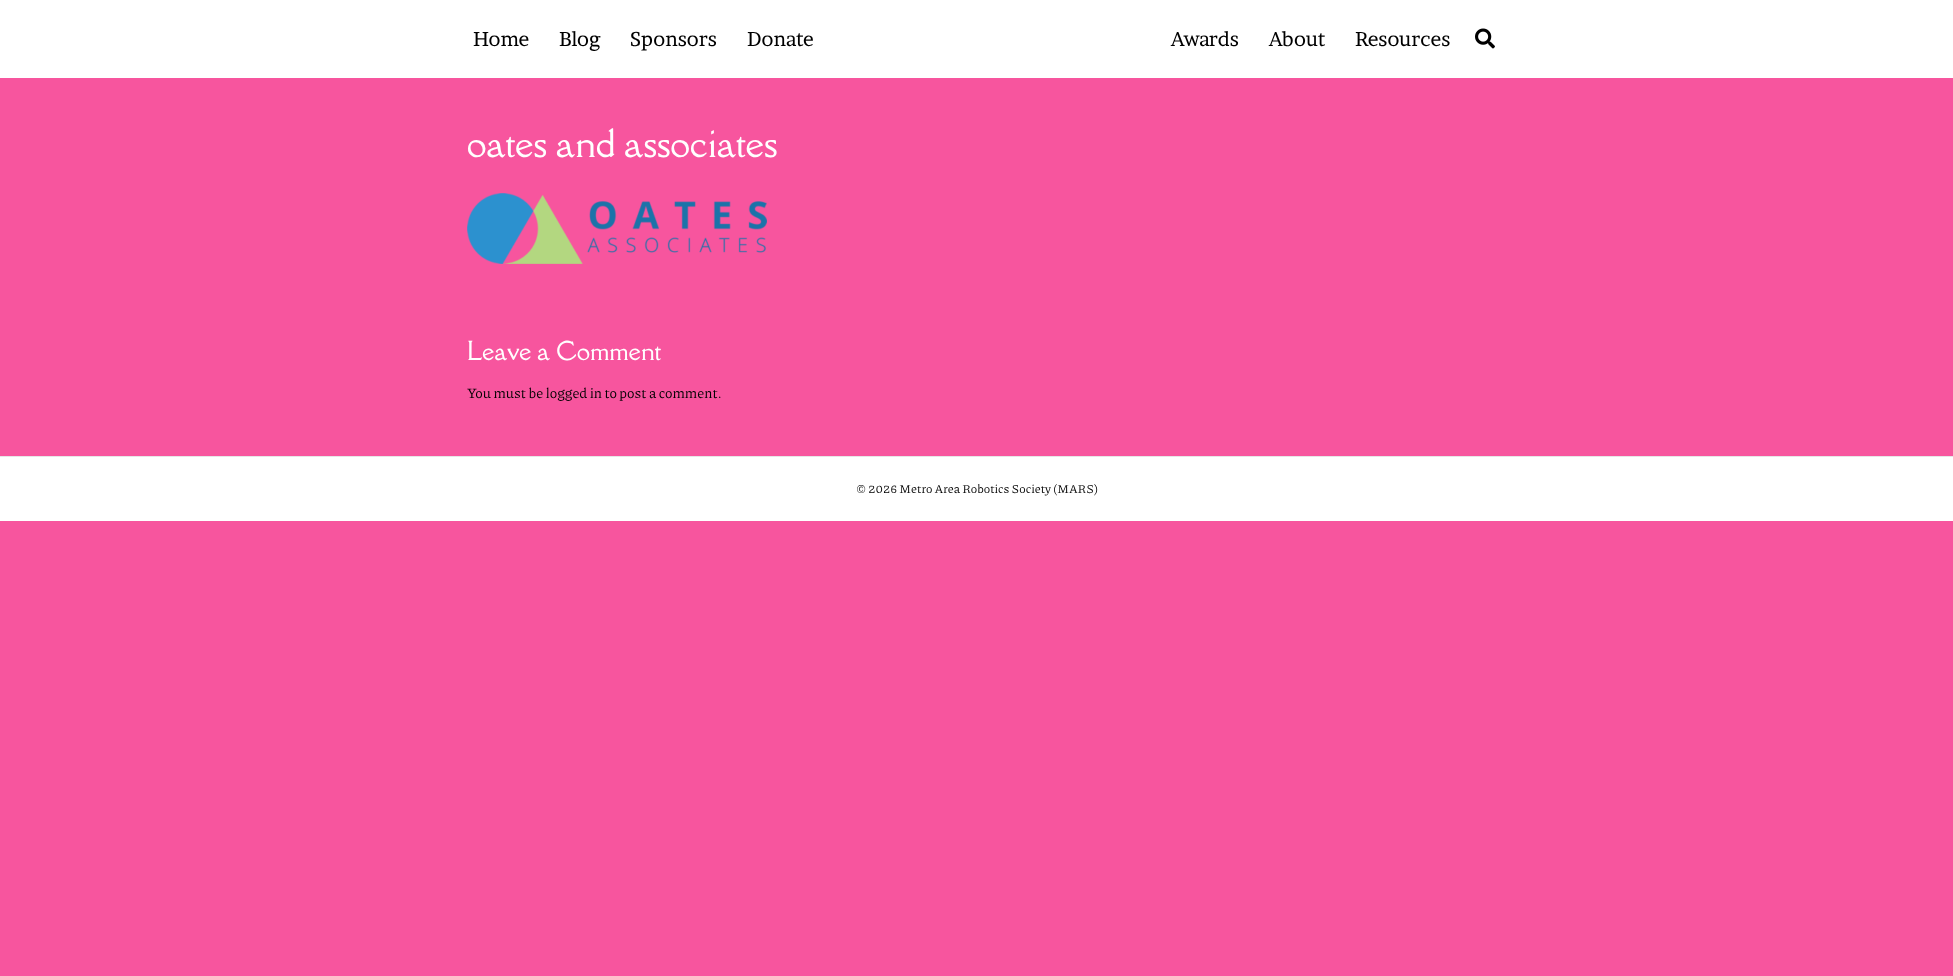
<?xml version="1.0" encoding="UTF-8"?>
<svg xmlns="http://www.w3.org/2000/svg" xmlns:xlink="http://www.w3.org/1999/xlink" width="1953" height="976">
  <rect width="100%" height="100%" fill="#f7559e" />
  <rect width="1953" height="78" fill="#ffffff" />
  <image x="1475" y="28" width="20" height="21" xlink:href="image1.png" />
  <image x="467" y="193" width="300" height="71" xlink:href="image2.png" />
  <rect y="457" width="1953" height="64" fill="#ffffff" />
  <rect y="456" width="1953" height="1" fill="#e6e6e6" />
  <text x="473" y="46" style="font-family: Brawler; font-size: 20px; fill: #000000">Home</text>
  <text x="559" y="46" style="font-family: Brawler; font-size: 20px; fill: #000000">Blog</text>
  <text x="630" y="46" style="font-family: Brawler; font-size: 20px; fill: #000000">Sponsors</text>
  <text x="747" y="46" style="font-family: Brawler; font-size: 20px; fill: #000000">Donate</text>
  <text x="1171" y="46" style="font-family: Brawler; font-size: 20px; fill: #000000">Awards</text>
  <text x="1269" y="46" style="font-family: Brawler; font-size: 20px; fill: #000000">About</text>
  <text x="1355" y="46" style="font-family: Brawler; font-size: 20px; fill: #000000">Resources</text>
  <text x="467" y="157" style="font-family: Della Respira; font-size: 36px; fill: #ffffff">oates and associates</text>
  <text x="467" y="360" style="font-family: Della Respira; font-size: 24px; fill: #ffffff">Leave a Comment</text>
  <text x="467" y="398" style="font-family: Piazzolla; font-size: 14px; fill: #000000">You must be logged in to post a comment.</text>
  <text x="856" y="493" style="font-family: Piazzolla; font-size: 12px; fill: #000000">© 2026 Metro Area Robotics Society (MARS)</text>
</svg>
